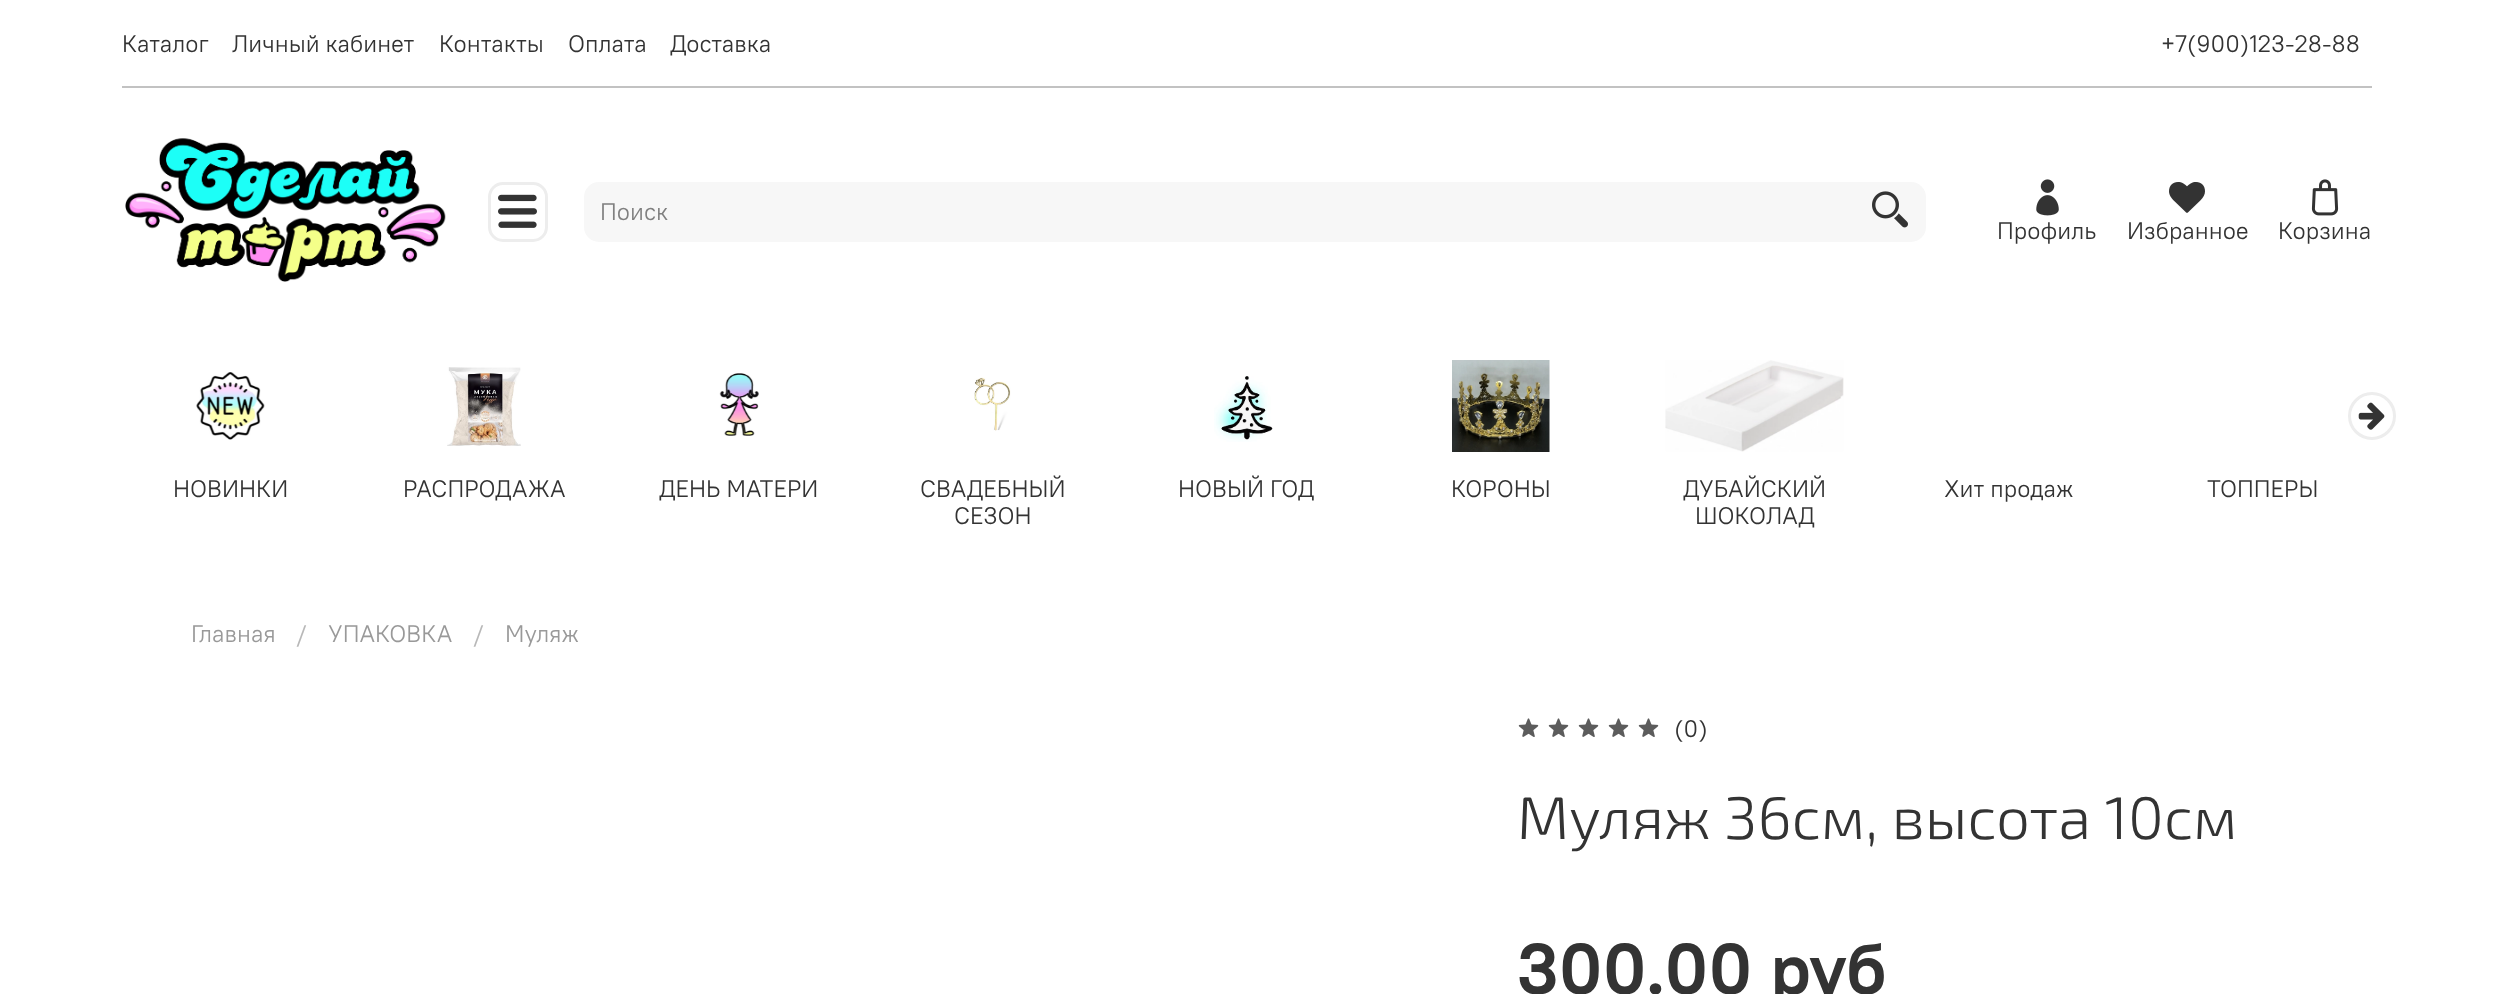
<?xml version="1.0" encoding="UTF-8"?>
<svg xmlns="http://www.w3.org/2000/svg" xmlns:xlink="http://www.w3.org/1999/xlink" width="2493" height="994">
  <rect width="100%" height="100%" fill="#ffffff" />
  <rect x="122" y="86" width="2250" height="2" fill="#c2c2c2" />
  <image x="125" y="138" width="321" height="144" xlink:href="image1.png" />
  <rect x="489.5" y="183.5" width="57" height="57" rx="13.5" fill="none" stroke="#ededed" stroke-width="3" />
  <image x="498" y="194" width="39" height="34" xlink:href="image2.png" />
  <rect x="584" y="182" width="1342" height="60" rx="15" fill="#f7f7f7" />
  <image x="1872" y="191" width="36" height="37" xlink:href="image3.png" />
  <image x="2036" y="179" width="23" height="37" xlink:href="image4.png" />
  <image x="2169" y="182" width="36" height="31" xlink:href="image5.png" />
  <image x="2311" y="179" width="28" height="37" xlink:href="image6.png" />
  <circle cx="2372" cy="416" r="22.5" fill="none" stroke="#ededed" stroke-width="3" />
  <image x="2358" y="402" width="27" height="28" xlink:href="image7.png" />
  <image x="196" y="372" width="69" height="68" xlink:href="image8.png" />
  <image x="447" y="367" width="74" height="79" xlink:href="image9.png" />
  <image x="719" y="373" width="40" height="63" xlink:href="image10.png" />
  <image x="974" y="377" width="37" height="54" xlink:href="image11.png" />
  <image x="1214" y="376" width="59" height="66" xlink:href="image12.png" />
  <image x="1452" y="360" width="98" height="92" xlink:href="image13.png" />
  <image x="1665" y="360" width="179" height="92" xlink:href="image14.png" />
  <image x="1518" y="718" width="21" height="19" xlink:href="image15.png" />
  <image x="1548" y="718" width="21" height="19" xlink:href="image15.png" />
  <image x="1578" y="718" width="21" height="19" xlink:href="image15.png" />
  <image x="1608" y="718" width="21" height="19" xlink:href="image15.png" />
  <image x="1638" y="718" width="21" height="19" xlink:href="image15.png" />
  <text x="122" y="52" style="font-family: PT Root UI; font-size: 24px; fill: #333333">Каталог</text>
  <text x="232" y="52" style="font-family: PT Root UI; font-size: 24px; fill: #333333">Личный кабинет</text>
  <text x="439" y="52" style="font-family: PT Root UI; font-size: 24px; fill: #333333">Контакты</text>
  <text x="568" y="52" style="font-family: PT Root UI; font-size: 24px; fill: #333333">Оплата</text>
  <text x="670" y="52" style="font-family: PT Root UI; font-size: 24px; fill: #333333">Доставка</text>
  <text x="2161" y="52" style="font-family: PT Root UI; font-size: 24px; fill: #333333">+7(900)123-28-88</text>
  <text x="600" y="220" style="font-family: PT Root UI; font-size: 24px; fill: #808080">Поиск</text>
  <text x="1997" y="239" style="font-family: PT Root UI; font-size: 24px; fill: #333333">Профиль</text>
  <text x="2127" y="239" style="font-family: PT Root UI; font-size: 24px; fill: #333333">Избранное</text>
  <text x="2278" y="239" style="font-family: PT Root UI; font-size: 24px; fill: #333333">Корзина</text>
  <text x="173" y="497" style="font-family: PT Root UI; font-size: 24px; fill: #333333">НОВИНКИ</text>
  <text x="403" y="497" style="font-family: PT Root UI; font-size: 24px; fill: #333333">РАСПРОДАЖА</text>
  <text x="659" y="497" style="font-family: PT Root UI; font-size: 24px; fill: #333333">ДЕНЬ МАТЕРИ</text>
  <text x="920" y="497" style="font-family: PT Root UI; font-size: 24px; fill: #333333">СВАДЕБНЫЙ</text>
  <text x="954" y="524" style="font-family: PT Root UI; font-size: 24px; fill: #333333">СЕЗОН</text>
  <text x="1178" y="497" style="font-family: PT Root UI; font-size: 24px; fill: #333333">НОВЫЙ ГОД</text>
  <text x="1451" y="497" style="font-family: PT Root UI; font-size: 24px; fill: #333333">КОРОНЫ</text>
  <text x="1683" y="497" style="font-family: PT Root UI; font-size: 24px; fill: #333333">ДУБАЙСКИЙ</text>
  <text x="1695" y="524" style="font-family: PT Root UI; font-size: 24px; fill: #333333">ШОКОЛАД</text>
  <text x="1944" y="497" style="font-family: PT Root UI; font-size: 24px; fill: #333333">Хит продаж</text>
  <text x="2207" y="497" style="font-family: PT Root UI; font-size: 24px; fill: #333333">ТОППЕРЫ</text>
  <text x="191" y="642" style="font-family: PT Root UI; font-size: 24px; fill: #999999">Главная</text>
  <text x="296" y="642" style="font-family: PT Root UI; font-size: 24px; fill: #b8b8b8">/</text>
  <text x="328" y="642" style="font-family: PT Root UI; font-size: 24px; fill: #999999">УПАКОВКА</text>
  <text x="473" y="642" style="font-family: PT Root UI; font-size: 24px; fill: #b8b8b8">/</text>
  <text x="505" y="642" style="font-family: PT Root UI; font-size: 24px; fill: #999999">Муляж</text>
  <text x="1674" y="737" style="font-family: PT Root UI; font-size: 24px; fill: #333333">(0)</text>
  <text x="1517" y="839" style="font-family: 'Exo 2'; font-size: 60px; font-weight: 300; fill: #333333">Муляж 36см, высота 10см</text>
  <text x="1517" y="994" style="font-family: PT Root UI; font-size: 72px; font-weight: bold; fill: #333333">300.00 руб</text>
</svg>
